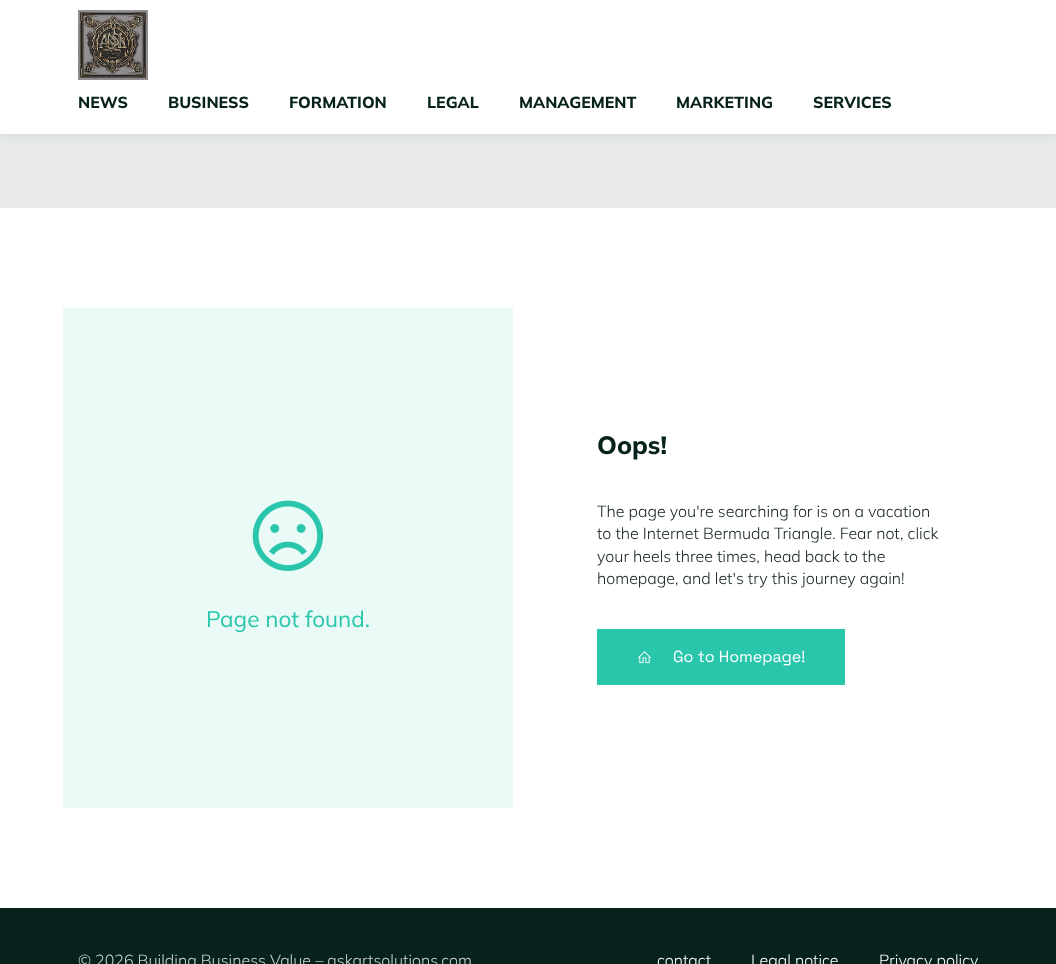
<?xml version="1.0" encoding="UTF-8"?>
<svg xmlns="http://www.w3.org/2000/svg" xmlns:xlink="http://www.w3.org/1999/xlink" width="1056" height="964">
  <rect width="100%" height="100%" fill="#ffffff" />
  <rect y="134" width="1056" height="74" fill="#e7eae9" />
  <rect width="1056" height="134" fill="#171927" fill-opacity="0.1" filter="blur(5px)" />
  <rect width="1056" height="134" fill="#ffffff" />
  <image x="78" y="10" width="70" height="70" xlink:href="image1.png" />
  <rect x="63" y="308" width="450" height="500" fill="#eafaf7" />
  <image x="252" y="500" width="72" height="71" xlink:href="image2.png" />
  <rect x="597" y="629" width="248" height="56" fill="#2ac6ac" />
  <image x="638" y="651" width="13" height="13" xlink:href="image3.png" />
  <rect y="908" width="1056" height="56" fill="#07221d" />
  <text x="78" y="108" style="font-family: Mulish; font-size: 16px; font-weight: 800; fill: #07221d">NEWS</text>
  <text x="168" y="108" style="font-family: Mulish; font-size: 16px; font-weight: 800; fill: #07221d">BUSINESS</text>
  <text x="289" y="108" style="font-family: Mulish; font-size: 16px; font-weight: 800; fill: #07221d">FORMATION</text>
  <text x="427" y="108" style="font-family: Mulish; font-size: 16px; font-weight: 800; fill: #07221d">LEGAL</text>
  <text x="519" y="108" style="font-family: Mulish; font-size: 16px; font-weight: 800; fill: #07221d">MANAGEMENT</text>
  <text x="676" y="108" style="font-family: Mulish; font-size: 16px; font-weight: 800; fill: #07221d">MARKETING</text>
  <text x="813" y="108" style="font-family: Mulish; font-size: 16px; font-weight: 800; fill: #07221d">SERVICES</text>
  <text x="206" y="627" style="font-family: Mulish; font-size: 22.5px; fill: #2ac6ac">Page not found.</text>
  <text x="597" y="454" style="font-family: Mulish; font-size: 25px; font-weight: 800; fill: #07221d">Oops!</text>
  <text x="597" y="517" style="font-family: Mulish; font-size: 16px; font-weight: 300; fill: #12211f">The page you're searching for is on a vacation</text>
  <text x="597" y="539" style="font-family: Mulish; font-size: 16px; font-weight: 300; fill: #12211f">to the Internet Bermuda Triangle. Fear not, click</text>
  <text x="597" y="562" style="font-family: Mulish; font-size: 16px; font-weight: 300; fill: #12211f">your heels three times, head back to the</text>
  <text x="597" y="584" style="font-family: Mulish; font-size: 16px; font-weight: 300; fill: #12211f">homepage, and let's try this journey again!</text>
  <text x="673" y="662" style="font-family: Space Grotesk; font-size: 16px; fill: #ffffff">Go to Homepage!</text>
  <text x="78" y="966" style="font-family: Mulish; font-size: 16px; font-weight: 300; fill: #cdd3d2">© 2026 Building Business Value – askartsolutions.com</text>
  <text x="657" y="966" style="font-family: Mulish; font-size: 16px; font-weight: 300; fill: #ffffff">contact</text>
  <text x="751" y="966" style="font-family: Mulish; font-size: 16px; font-weight: 300; fill: #ffffff">Legal notice</text>
  <text x="879" y="966" style="font-family: Mulish; font-size: 16px; font-weight: 300; fill: #ffffff">Privacy policy</text>
</svg>
